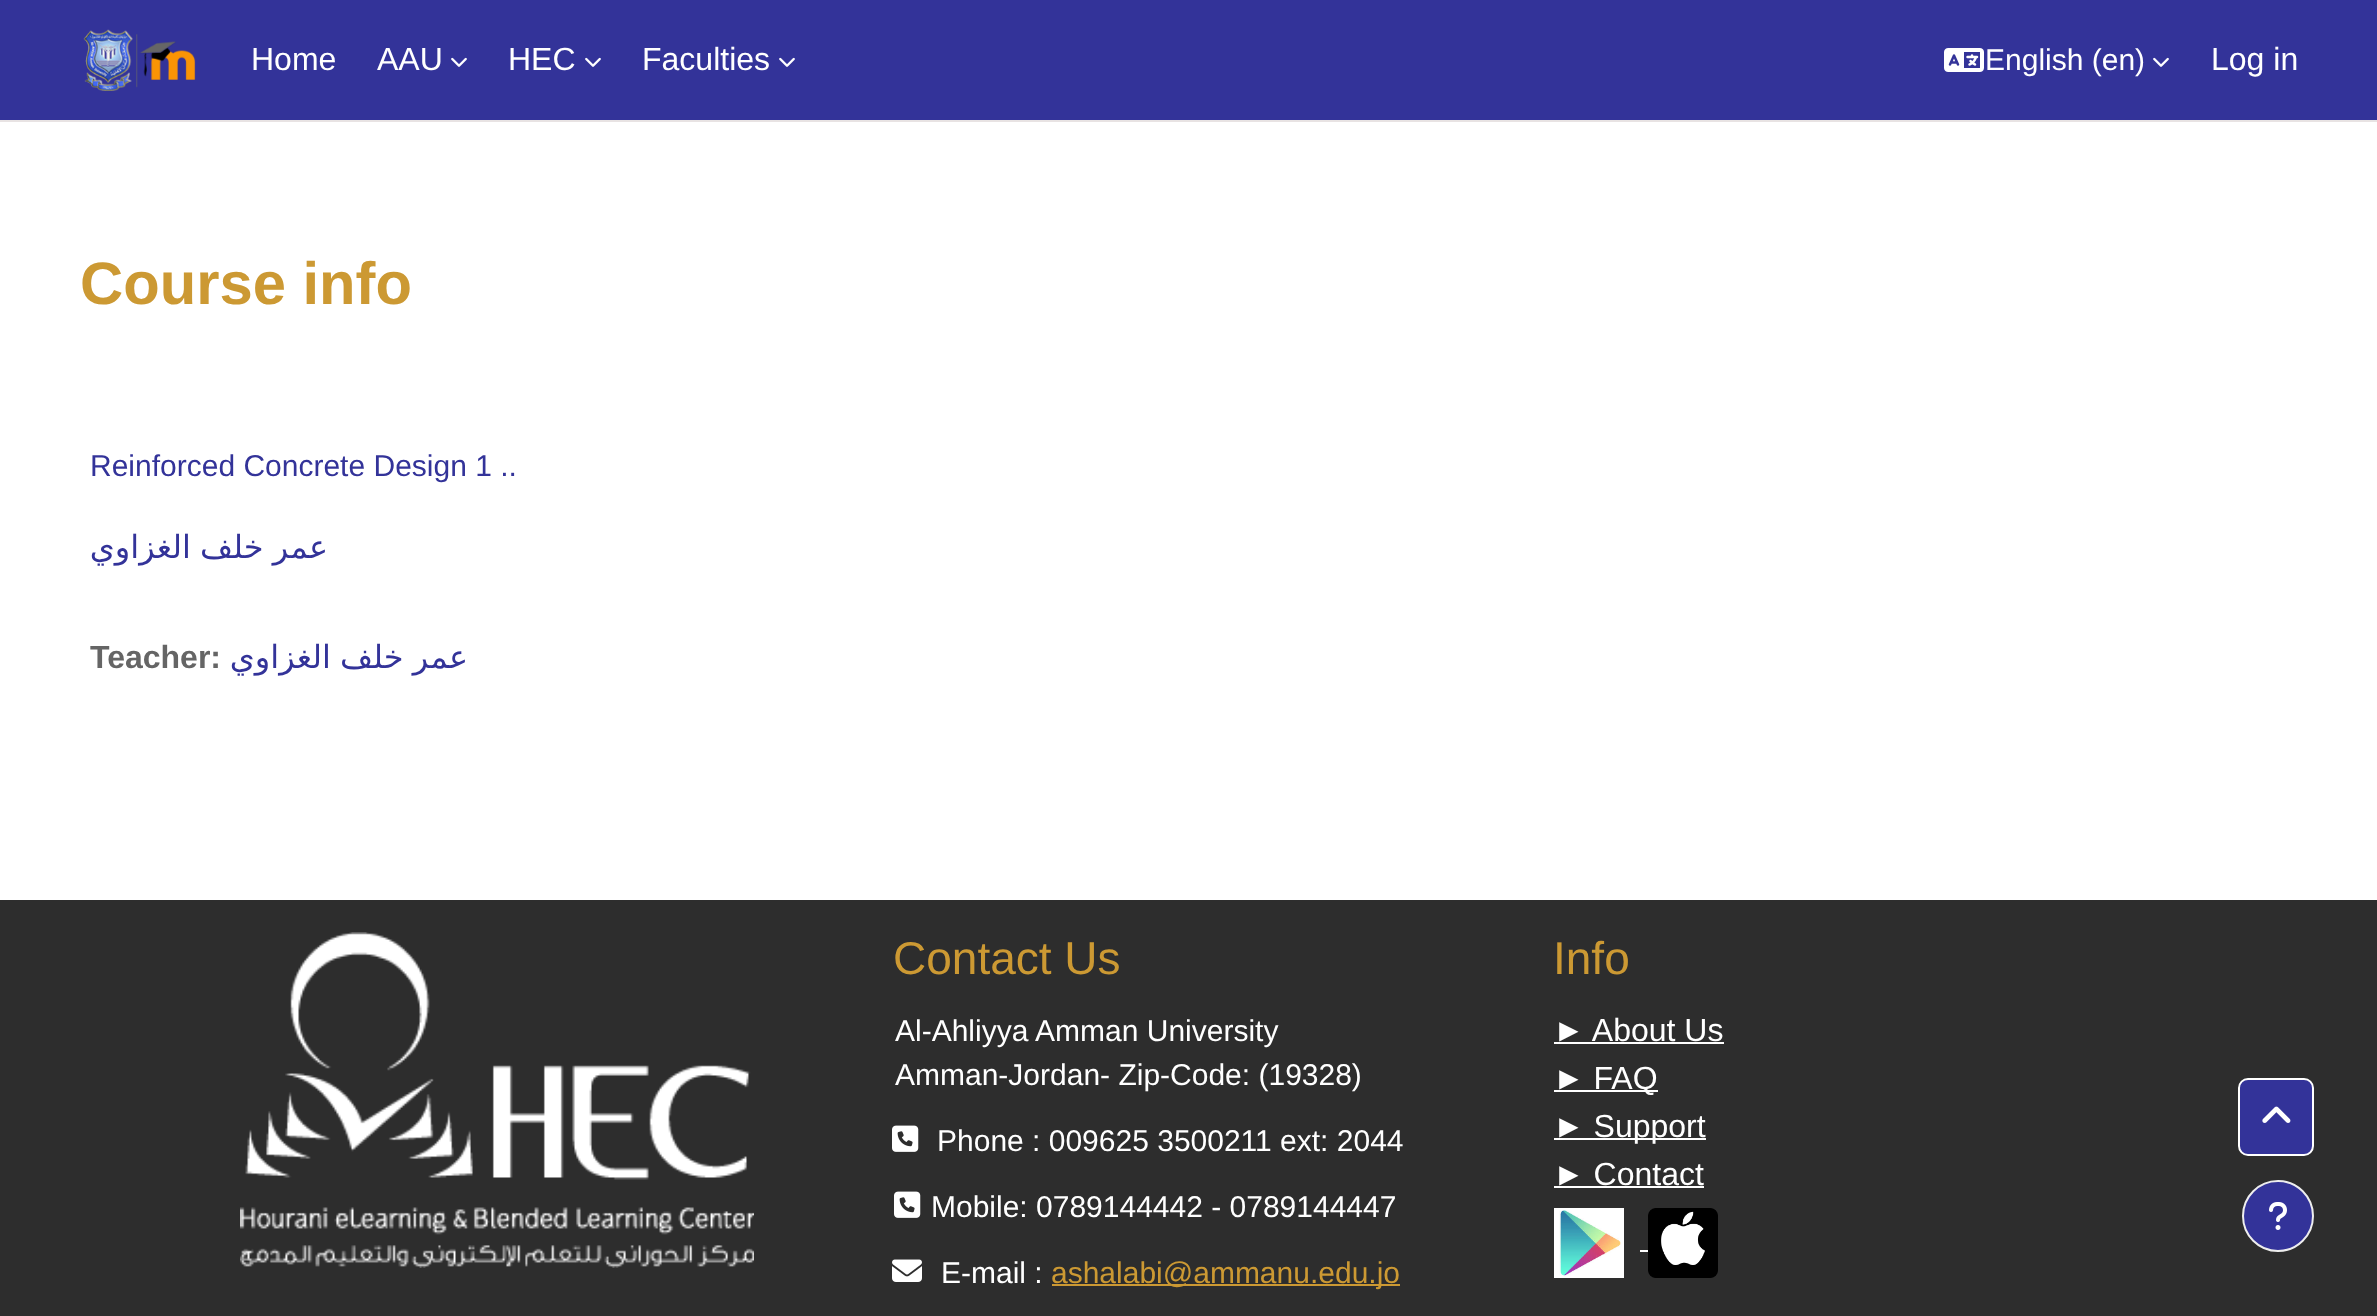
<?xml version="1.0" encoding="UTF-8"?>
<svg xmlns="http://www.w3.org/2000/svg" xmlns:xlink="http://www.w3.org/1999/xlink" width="2377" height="1316">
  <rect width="100%" height="100%" fill="#ffffff" />
  <rect width="2377" height="120" fill="#333399" />
  <rect y="120" width="2377" height="2" fill="#e8e3e3" />
  <image x="83" y="29" width="113" height="62" xlink:href="image1.png" />
  <image x="451" y="57" width="16" height="10" xlink:href="image2.png" />
  <image x="585" y="57" width="16" height="10" xlink:href="image2.png" />
  <image x="779" y="57" width="16" height="10" xlink:href="image2.png" />
  <image x="1944" y="48" width="40" height="24" xlink:href="image3.png" />
  <image x="2153" y="57" width="16" height="10" xlink:href="image2.png" />
  <rect y="900" width="2377" height="416" fill="#2d2d2d" />
  <image x="240" y="932" width="514" height="336" xlink:href="image4.png" />
  <image x="892" y="1125" width="27" height="27" xlink:href="image5.png" />
  <image x="894" y="1191" width="27" height="27" xlink:href="image5.png" />
  <image x="892" y="1259" width="30" height="23" xlink:href="image6.png" />
  <rect x="1052" y="1284" width="348" height="2" fill="#cc9933" />
  <rect x="1554" y="1042" width="170" height="2" fill="#ffffff" />
  <rect x="1554" y="1090" width="104" height="2" fill="#ffffff" />
  <rect x="1554" y="1138" width="152" height="2" fill="#ffffff" />
  <rect x="1554" y="1186" width="150" height="2" fill="#ffffff" />
  <image x="1554" y="1208" width="70" height="70" xlink:href="image7.png" />
  <rect x="1640" y="1250" width="8" height="2" fill="#ffffff" />
  <image x="1648" y="1208" width="70" height="70" xlink:href="image8.png" />
  <circle cx="2278" cy="1216" r="35" fill="#333399" stroke="#eeeeee" stroke-width="2" />
  <image x="2269" y="1202" width="18" height="28" xlink:href="image9.png" />
  <rect x="2239" y="1079" width="74" height="76" rx="9" fill="#333399" stroke="#ffffff" stroke-width="2" />
  <image x="2262" y="1106" width="29" height="17" xlink:href="image10.png" />
  <text x="251" y="70" style="font-family: Liberation Sans; font-size: 32px; fill: #ffffff">Home</text>
  <text x="377" y="70" style="font-family: Liberation Sans; font-size: 32px; fill: #ffffff">AAU</text>
  <text x="508" y="70" style="font-family: Liberation Sans; font-size: 32px; fill: #ffffff">HEC</text>
  <text x="642" y="70" style="font-family: Liberation Sans; font-size: 32px; fill: #ffffff">Faculties</text>
  <text x="1985" y="70" style="font-family: Liberation Sans; font-size: 30px; fill: #ffffff">English (en)</text>
  <text x="2211" y="70" style="font-family: Liberation Sans; font-size: 32px; fill: #ffffff">Log in</text>
  <text x="80" y="304" style="font-family: Liberation Sans; font-size: 59.75px; font-weight: bold; fill: #cc9933">Course info</text>
  <text x="90" y="476" style="font-family: Liberation Sans; font-size: 30px; fill: #333399">Reinforced Concrete Design 1 ..</text>
  <text x="328" y="558" word-spacing="-1" style="font-family: DejaVu Sans; font-size: 32px; direction: rtl; fill: #333399">عمر خلف الغزاوي</text>
  <text x="90" y="668" style="font-family: Liberation Sans; font-size: 32px; font-weight: bold; fill: #656565">Teacher:</text>
  <text x="468" y="668" word-spacing="-1" style="font-family: DejaVu Sans; font-size: 32px; direction: rtl; fill: #333399">عمر خلف الغزاوي</text>
  <text x="893" y="974" style="font-family: Liberation Sans; font-size: 46px; fill: #cc9933">Contact Us</text>
  <text x="895" y="1041" style="font-family: Liberation Sans; font-size: 30px; fill: #ffffff">Al-Ahliyya Amman University</text>
  <text x="895" y="1085" style="font-family: Liberation Sans; font-size: 30px; fill: #ffffff">Amman-Jordan- Zip-Code: (19328)</text>
  <text x="937" y="1151" style="font-family: Liberation Sans; font-size: 30px; fill: #ffffff">Phone : 009625 3500211 ext: 2044</text>
  <text x="931" y="1217" style="font-family: Liberation Sans; font-size: 30px; fill: #ffffff">Mobile: 0789144442 - 0789144447</text>
  <text x="941" y="1283" style="font-family: Liberation Sans; font-size: 30px; fill: #ffffff">E-mail :</text>
  <text x="1051" y="1283" style="font-family: Liberation Sans; font-size: 30px; fill: #cc9933">ashalabi@ammanu.edu.jo</text>
  <text x="1553" y="974" style="font-family: Liberation Sans; font-size: 46px; fill: #cc9933">Info</text>
  <text x="1553" y="1041" style="font-family: Liberation Sans; font-size: 32px; fill: #ffffff">► About Us</text>
  <text x="1553" y="1089" style="font-family: Liberation Sans; font-size: 32px; fill: #ffffff">► FAQ</text>
  <text x="1553" y="1137" style="font-family: Liberation Sans; font-size: 32px; fill: #ffffff">► Support</text>
  <text x="1553" y="1185" style="font-family: Liberation Sans; font-size: 32px; fill: #ffffff">► Contact</text>
</svg>
